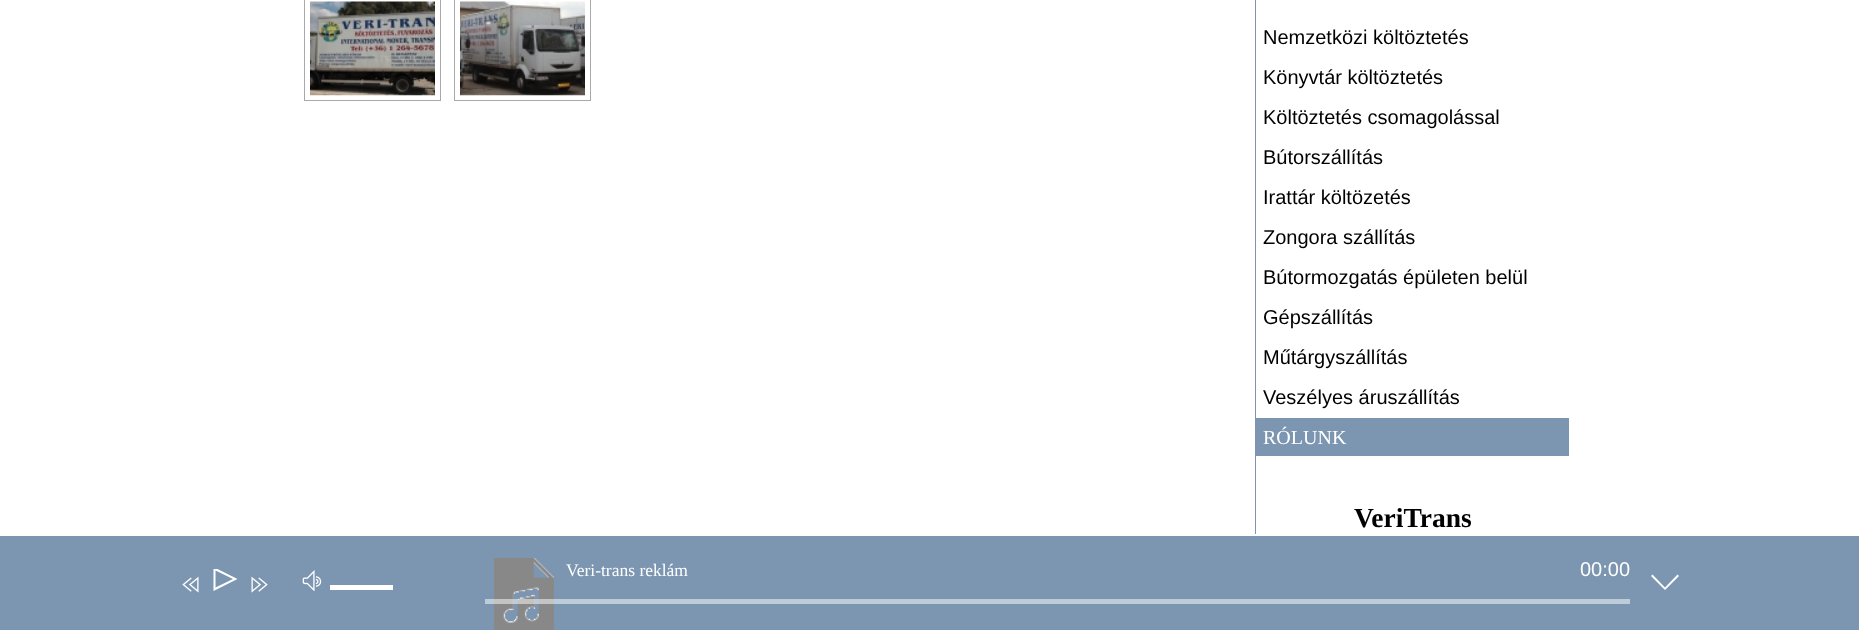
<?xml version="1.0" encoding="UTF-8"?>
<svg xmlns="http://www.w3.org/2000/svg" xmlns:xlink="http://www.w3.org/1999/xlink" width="1859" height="630">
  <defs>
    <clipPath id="clip1"><rect x="208" y="569" width="31" height="31" /></clipPath>
  </defs>
  <rect width="100%" height="100%" fill="#ffffff" />
  <rect x="304.5" y="-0.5" width="136" height="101" fill="none" stroke="#a9a9a9" />
  <image x="310" y="1" width="125" height="95" xlink:href="image1.png" />
  <rect x="454.5" y="-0.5" width="136" height="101" fill="none" stroke="#a9a9a9" />
  <image x="460" y="1" width="125" height="95" xlink:href="image2.png" />
  <rect x="1255" width="1" height="534" fill="#7c96b1" />
  <rect x="1256" y="418" width="313" height="38" fill="#7c96b1" />
  <rect y="536" width="1859" height="94" fill="#7c96b1" />
  <image x="494" y="558" width="60" height="72" xlink:href="image3.png" />
  <g clip-path="url(#clip1)">
    <path d="M 213.5 567 v 24 l 24 -12 z m 2 3.5 l 17.5 8.5 l -17.5 8.5 z" fill="#ffffff" />
  </g>
  <image x="302" y="570" width="20" height="21" xlink:href="image4.png" />
  <rect x="330" y="585" width="63" height="5" fill="#ffffff" />
  <rect x="485" y="599" width="1145" height="5" fill="#ffffff" fill-opacity="0.5" />
  <image x="182" y="576" width="17" height="17" xlink:href="image5.png" />
  <image x="251" y="576" width="17" height="17" xlink:href="image6.png" />
  <path d="M 1679 576 l -14 14 l -14 -14 l 1.5 -1.5 l 12.5 13 l 12.5 -13 z" fill="#ffffff" />
  <text x="1263" y="44" style="font-family: Liberation Sans; font-size: 20px; fill: #000000">Nemzetközi költöztetés</text>
  <text x="1263" y="84" style="font-family: Liberation Sans; font-size: 20px; fill: #000000">Könyvtár költöztetés</text>
  <text x="1263" y="124" style="font-family: Liberation Sans; font-size: 20px; fill: #000000">Költöztetés csomagolással</text>
  <text x="1263" y="164" style="font-family: Liberation Sans; font-size: 20px; fill: #000000">Bútorszállítás</text>
  <text x="1263" y="204" style="font-family: Liberation Sans; font-size: 20px; fill: #000000">Irattár költözetés</text>
  <text x="1263" y="244" style="font-family: Liberation Sans; font-size: 20px; fill: #000000">Zongora szállítás</text>
  <text x="1263" y="284" style="font-family: Liberation Sans; font-size: 20px; fill: #000000">Bútormozgatás épületen belül</text>
  <text x="1263" y="324" style="font-family: Liberation Sans; font-size: 20px; fill: #000000">Gépszállítás</text>
  <text x="1263" y="364" style="font-family: Liberation Sans; font-size: 20px; fill: #000000">Műtárgyszállítás</text>
  <text x="1263" y="404" style="font-family: Liberation Sans; font-size: 20px; fill: #000000">Veszélyes áruszállítás</text>
  <text x="1263" y="444" style="font-family: Liberation Serif; font-size: 20px; fill: #ffffff">RÓLUNK</text>
  <text x="1354" y="527" style="font-family: Liberation Serif; font-size: 27.5px; font-weight: bold; fill: #000000">VeriTrans</text>
  <text x="566" y="576" style="font-family: Liberation Serif; font-size: 17.5px; fill: #ffffff">Veri-trans reklám</text>
  <text x="1580" y="576" style="font-family: Liberation Sans; font-size: 20px; fill: #ffffff">00:00</text>
</svg>
